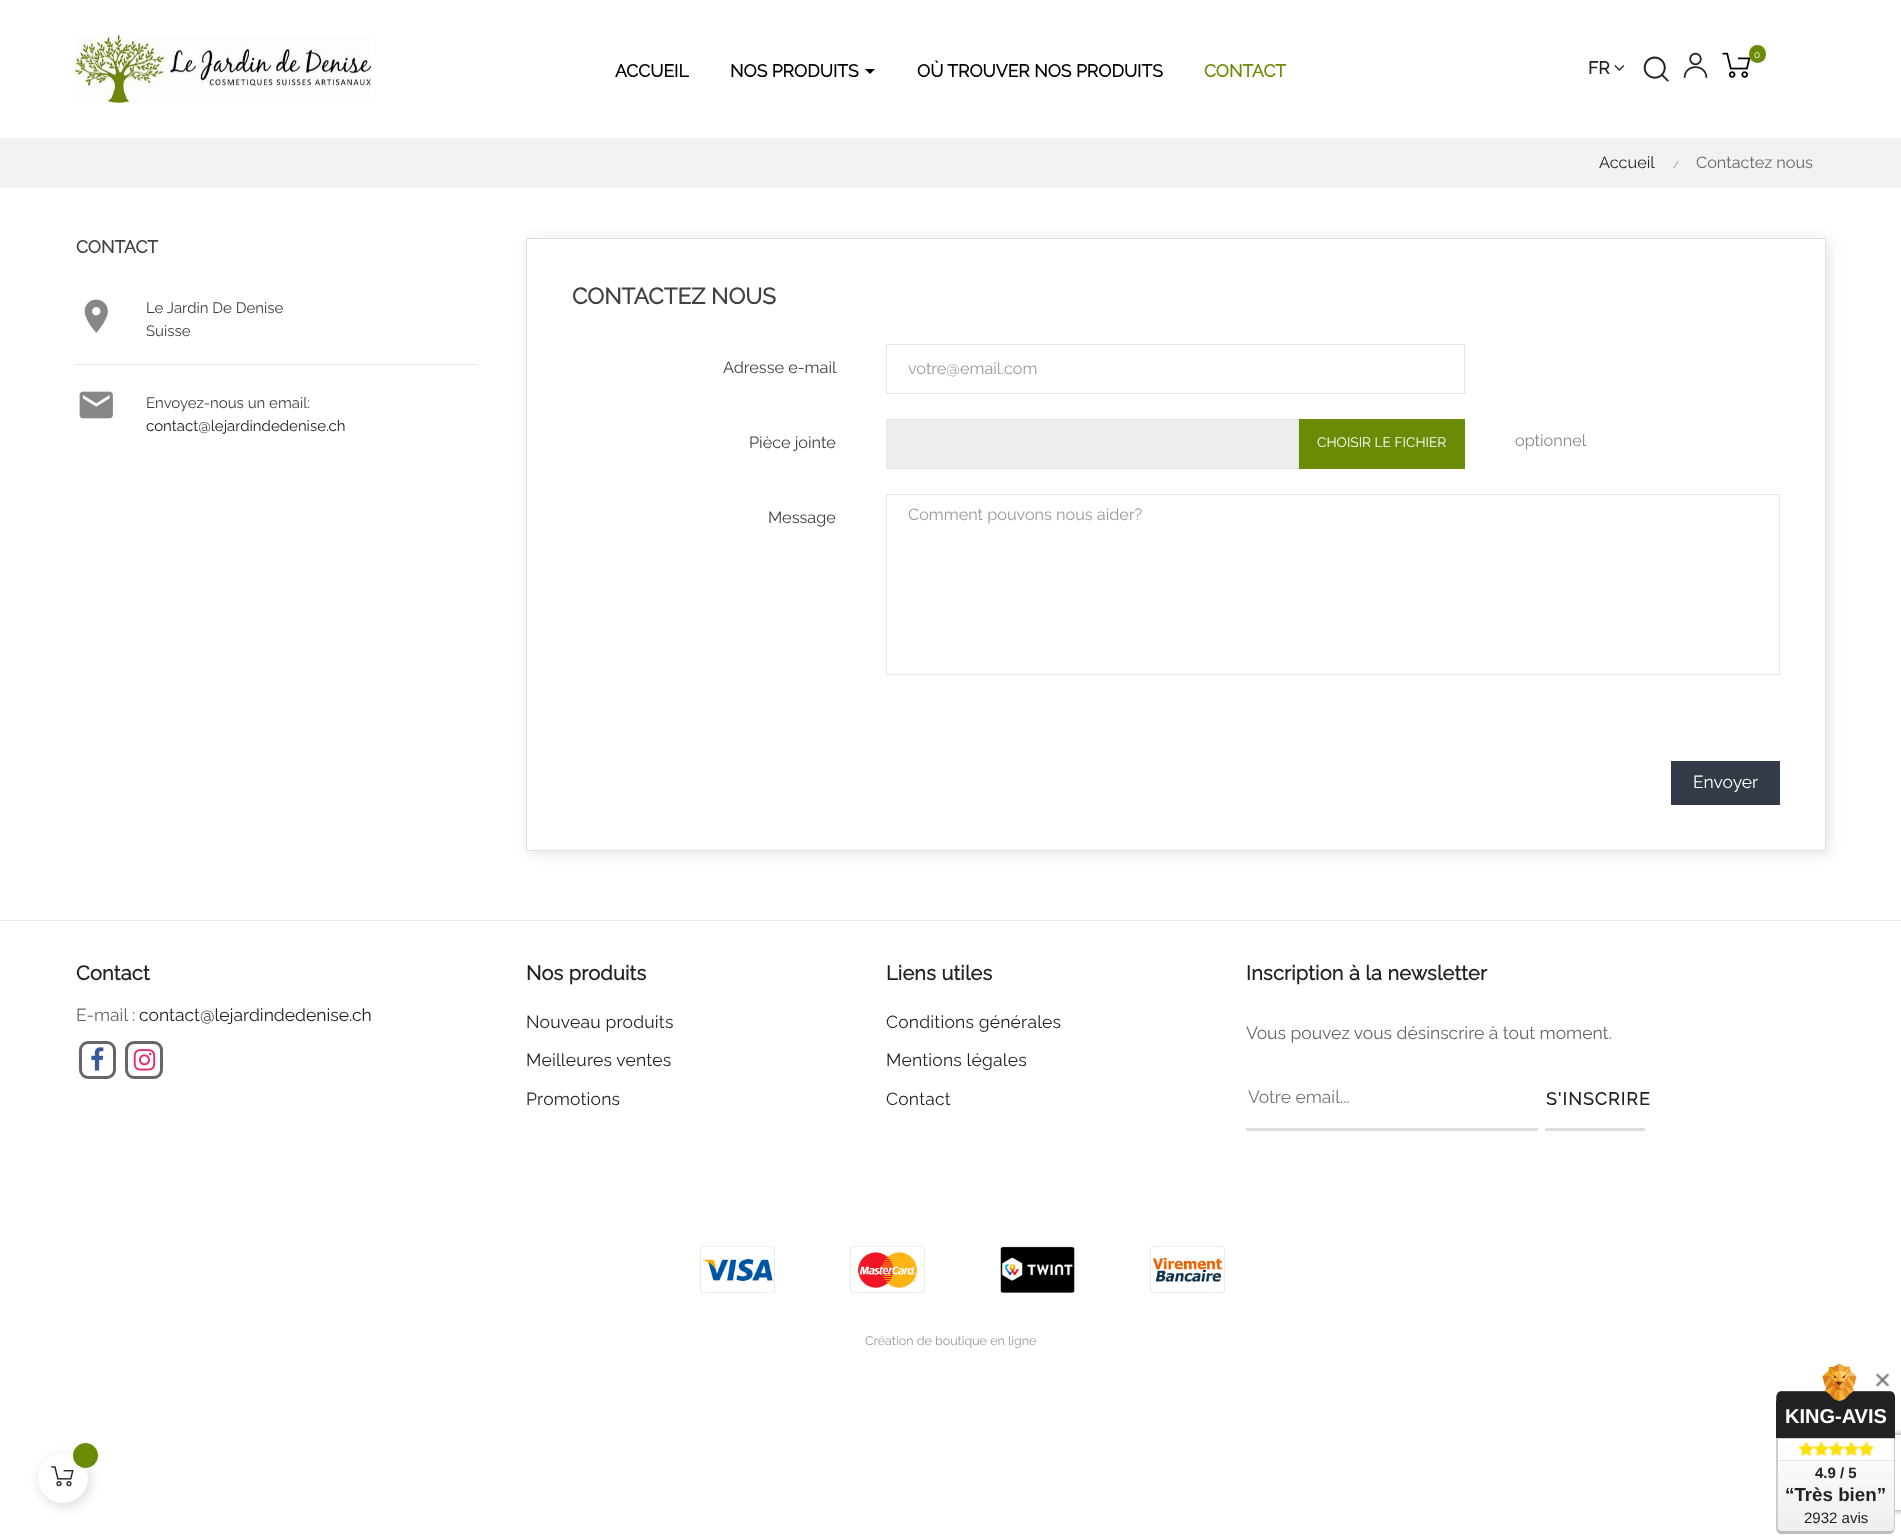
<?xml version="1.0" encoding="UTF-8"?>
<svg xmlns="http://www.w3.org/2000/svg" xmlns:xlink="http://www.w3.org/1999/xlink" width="1901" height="1539">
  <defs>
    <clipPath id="clip1"><path d="M 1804 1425 h 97 v 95 h -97 z m 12.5 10 h 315 c 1.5 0 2.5 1 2.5 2.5 v 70 c 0 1.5 -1 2.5 -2.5 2.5 h -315 c -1.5 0 -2.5 -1 -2.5 -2.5 v -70 c 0 -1.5 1 -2.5 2.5 -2.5 z" clip-rule="evenodd" /></clipPath>
    <linearGradient id="g1" gradientUnits="userSpaceOnUse" x1="1836" y1="1439" x2="1836" y2="1531"><stop offset="0" stop-color="#ffffff" /><stop offset="1" stop-color="#eeeeee" /></linearGradient>
  </defs>
  <rect width="100%" height="100%" fill="#ffffff" />
  <image x="75" y="35" width="297" height="68" xlink:href="image1.png" />
  <path d="M 865 69 h 10 l -5 5 z" fill="#000000" />
  <image x="1614" y="65" width="11" height="6" xlink:href="image2.png" />
  <image x="1643" y="56" width="26" height="26" xlink:href="image3.png" />
  <image x="1683" y="52" width="25" height="26" xlink:href="image4.png" />
  <image x="1722" y="52" width="29" height="26" xlink:href="image5.png" />
  <rect x="1749" y="45" width="17" height="18" rx="8.5" fill="#6b8b06" />
  <rect y="138" width="1901" height="50" fill="#f2f2f4" />
  <image x="84" y="299" width="24" height="34" xlink:href="image6.png" />
  <rect x="76" y="364" width="400" height="1" fill="#e6e6e6" />
  <image x="79" y="391" width="34" height="28" xlink:href="image7.png" />
  <rect x="529" y="240" width="1300" height="614" fill="#000000" fill-opacity="0.1" filter="blur(7px)" />
  <rect x="526.5" y="238.5" width="1299" height="612" fill="#ffffff" stroke="#dfdfdf" />
  <rect x="886.5" y="344.5" width="578" height="49" fill="none" stroke="#e5e5e5" />
  <rect x="886.5" y="419.5" width="412" height="49" fill="#eceeef" stroke="#e5e5e5" />
  <rect x="1299" y="419" width="166" height="50" fill="#6b8b06" />
  <rect x="886.5" y="494.5" width="893" height="180" fill="none" stroke="#e5e5e5" />
  <g clip-path="url(#clip1)">
    <rect x="1814" y="1435" width="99" height="75" rx="2.5" fill="#808080" filter="blur(3px)" />
  </g>
  <rect x="1671" y="761" width="109" height="44" fill="#333b48" />
  <rect y="920" width="1901" height="1" fill="#eaeaea" />
  <rect x="80.5" y="1042.5" width="34" height="35" rx="7.5" fill="none" stroke="#666666" stroke-width="3" />
  <image x="91" y="1047" width="13" height="24" xlink:href="image8.png" />
  <rect x="126.5" y="1042.5" width="35" height="35" rx="7.5" fill="none" stroke="#666666" stroke-width="3" />
  <image x="133" y="1049" width="23" height="22" xlink:href="image9.png" />
  <rect x="1246" y="1128" width="292" height="3" fill="#dddddd" />
  <rect x="1545" y="1128" width="100" height="3" fill="#dddddd" />
  <image x="700" y="1246" width="75" height="47" xlink:href="image10.png" />
  <image x="850" y="1246" width="75" height="47" xlink:href="image11.png" />
  <image x="1000" y="1246" width="75" height="47" xlink:href="image12.png" />
  <image x="1150" y="1246" width="75" height="47" xlink:href="image13.png" />
  <rect x="40" y="1456" width="50" height="50" rx="25" fill="#000000" fill-opacity="0.15" filter="blur(6px)" />
  <circle cx="63" cy="1478" r="25" fill="#ffffff" />
  <image x="51" y="1466" width="23" height="21" xlink:href="image14.png" />
  <circle cx="85" cy="1455" r="13.5" fill="none" stroke="#ffffff" stroke-width="3" />
  <circle cx="85.5" cy="1455.5" r="12.5" fill="#6b8b06" />
  <rect x="1776" y="1401" width="119" height="37" fill="#222222" />
  <image x="1776" y="1363" width="119" height="39" xlink:href="image15.png" />
  <path d="M 1778 1439 h 116 v 89 c 0 2 -2 3 -5 3 h -107 c -2 0 -4 -1 -4 -3 z" fill="url(#g1)" />
  <path d="M 1778 1439 h 116 v -1 h -117 z" fill="#cccccc" />
  <path d="M 1895 1528 v -90 h -1 v 1 v 89 l -1 2 l 1 1 z" fill="#cccccc" />
  <path d="M 1780 1534 l -3 -2 l 1 -3 c 1 1 3 2 4 2 h 107 c 2 0 3 0 4 -1 l 1 1 l -3 3 z" fill="#bbbbbb" />
  <path d="M 1776 1438 l 2 1 v 89 v 1 l -1 3 l -1 -2 z" fill="#cccccc" />
  <image x="1875" y="1373" width="15" height="14" xlink:href="image16.png" />
  <rect x="1778" y="1453" width="116" height="7" fill="#ffffff" />
  <rect x="1778" y="1460" width="116" height="1" fill="#e9e9e9" />
  <image x="1798" y="1441" width="17" height="16" xlink:href="image17.png" />
  <image x="1813" y="1441" width="17" height="16" xlink:href="image18.png" />
  <image x="1828" y="1441" width="17" height="16" xlink:href="image19.png" />
  <image x="1843" y="1441" width="17" height="16" xlink:href="image19.png" />
  <image x="1858" y="1441" width="17" height="16" xlink:href="image20.png" />
  <text x="615" y="77" style="font-family: Raleway; font-size: 17.5px; font-weight: bold; fill: #000000">ACCUEIL</text>
  <text x="730" y="77" style="font-family: Raleway; font-size: 17.5px; font-weight: bold; fill: #000000">NOS PRODUITS</text>
  <text x="917" y="77" style="font-family: Raleway; font-size: 17.5px; font-weight: bold; fill: #000000">OÙ TROUVER NOS PRODUITS</text>
  <text x="1204" y="77" style="font-family: Raleway; font-size: 17.5px; font-weight: bold; fill: #6b8b06">CONTACT</text>
  <text x="1588" y="74" style="font-family: Raleway; font-size: 17.5px; font-weight: bold; fill: #222222">FR</text>
  <text x="1754" y="58" style="font-family: Raleway; font-size: 10px; font-weight: 100; fill: #ffffff">0</text>
  <text x="1599" y="168" style="font-family: Raleway; font-size: 16.25px; font-weight: 100; fill: #222222">Accueil</text>
  <text x="1673" y="168" style="font-family: Raleway; font-size: 10px; font-weight: 100; fill: #888888">/</text>
  <text x="1696" y="168" style="font-family: Raleway; font-size: 16.25px; font-weight: 100; fill: #666666">Contactez nous</text>
  <text x="76" y="253" style="font-family: Raleway; font-size: 17.5px; font-weight: bold; fill: #414141">CONTACT</text>
  <text x="146" y="313" style="font-family: Raleway; font-size: 15px; font-weight: 100; fill: #414141">Le Jardin De Denise</text>
  <text x="146" y="336" style="font-family: Raleway; font-size: 15px; font-weight: 100; fill: #414141">Suisse</text>
  <text x="146" y="408" style="font-family: Raleway; font-size: 15px; font-weight: 100; fill: #414141">Envoyez-nous un email:</text>
  <text x="146" y="431" style="font-family: Raleway; font-size: 15px; font-weight: 100; fill: #222222">contact@lejardindedenise.ch</text>
  <text x="572" y="304" style="font-family: Raleway; font-size: 22.5px; font-weight: bold; fill: #414141">CONTACTEZ NOUS</text>
  <text x="723" y="373" style="font-family: Raleway; font-size: 16.25px; font-weight: 100; fill: #414141">Adresse e-mail</text>
  <text x="908" y="374" style="font-family: Raleway; font-size: 16.25px; font-weight: 100; fill: #999999">votre@email.com</text>
  <text x="749" y="448" style="font-family: Raleway; font-size: 16.25px; font-weight: 100; fill: #414141">Pièce jointe</text>
  <text x="1317" y="447" style="font-family: Raleway; font-size: 13.75px; font-weight: 100; fill: #ffffff">CHOISIR LE FICHIER</text>
  <text x="1515" y="446" style="font-family: Raleway; font-size: 16.25px; font-weight: 100; fill: #888888">optionnel</text>
  <text x="768" y="523" style="font-family: Raleway; font-size: 16.25px; font-weight: 100; fill: #414141">Message</text>
  <text x="908" y="520" style="font-family: Raleway; font-size: 16.25px; font-weight: 100; fill: #999999">Comment pouvons nous aider?</text>
  <text x="1693" y="788" style="font-family: Raleway; font-size: 17.5px; font-weight: 100; fill: #ffffff">Envoyer</text>
  <text x="76" y="980" style="font-family: Raleway; font-size: 20px; font-weight: bold; letter-spacing: 0.2px; fill: #222222">Contact</text>
  <text x="76" y="1021" style="font-family: Raleway; font-size: 17.5px; font-weight: 100; fill: #666666">E-mail :</text>
  <text x="139" y="1021" style="font-family: Raleway; font-size: 17.5px; font-weight: 100; fill: #222222">contact@lejardindedenise.ch</text>
  <text x="526" y="980" style="font-family: Raleway; font-size: 20px; font-weight: bold; letter-spacing: 0.2px; fill: #222222">Nos produits</text>
  <text x="526" y="1028" style="font-family: Raleway; font-size: 17.5px; font-weight: 100; letter-spacing: 0.2px; fill: #222222">Nouveau produits</text>
  <text x="526" y="1066" style="font-family: Raleway; font-size: 17.5px; font-weight: 100; letter-spacing: 0.2px; fill: #222222">Meilleures ventes</text>
  <text x="526" y="1105" style="font-family: Raleway; font-size: 17.5px; font-weight: 100; letter-spacing: 0.2px; fill: #222222">Promotions</text>
  <text x="886" y="980" style="font-family: Raleway; font-size: 20px; font-weight: bold; letter-spacing: 0.2px; fill: #222222">Liens utiles</text>
  <text x="886" y="1028" style="font-family: Raleway; font-size: 17.5px; font-weight: 100; letter-spacing: 0.2px; fill: #222222">Conditions générales</text>
  <text x="886" y="1066" style="font-family: Raleway; font-size: 17.5px; font-weight: 100; letter-spacing: 0.2px; fill: #222222">Mentions légales</text>
  <text x="886" y="1105" style="font-family: Raleway; font-size: 17.5px; font-weight: 100; letter-spacing: 0.2px; fill: #222222">Contact</text>
  <text x="1246" y="980" style="font-family: Raleway; font-size: 20px; font-weight: bold; letter-spacing: 0.2px; fill: #222222">Inscription à la newsletter</text>
  <text x="1246" y="1039" style="font-family: Raleway; font-size: 17.5px; font-weight: 100; fill: #666666">Vous pouvez vous désinscrire à tout moment.</text>
  <text x="1248" y="1103" style="font-family: Raleway; font-size: 17.5px; font-weight: 100; fill: #757575">Votre email...</text>
  <text x="1546" y="1105" style="font-family: Raleway; font-size: 17.5px; font-weight: bold; letter-spacing: 1.25px; fill: #222222">S'INSCRIRE</text>
  <text x="865" y="1345" style="font-family: Raleway; font-size: 12.5px; font-weight: 100; fill: #999999">Création de boutique en ligne</text>
  <text x="1785" y="1423" style="font-family: Liberation Sans; font-size: 20px; font-weight: bold; fill: #ffffff">KING-AVIS</text>
  <text x="1815" y="1478" style="font-family: Liberation Sans; font-size: 15px; font-weight: bold; fill: #222222">4.9 / 5</text>
  <text x="1785" y="1501" style="font-family: Liberation Sans; font-size: 18.75px; font-weight: bold; fill: #222222">“Très bien”</text>
  <text x="1804" y="1523" style="font-family: Liberation Sans; font-size: 15px; fill: #222222">2932 avis</text>
</svg>
